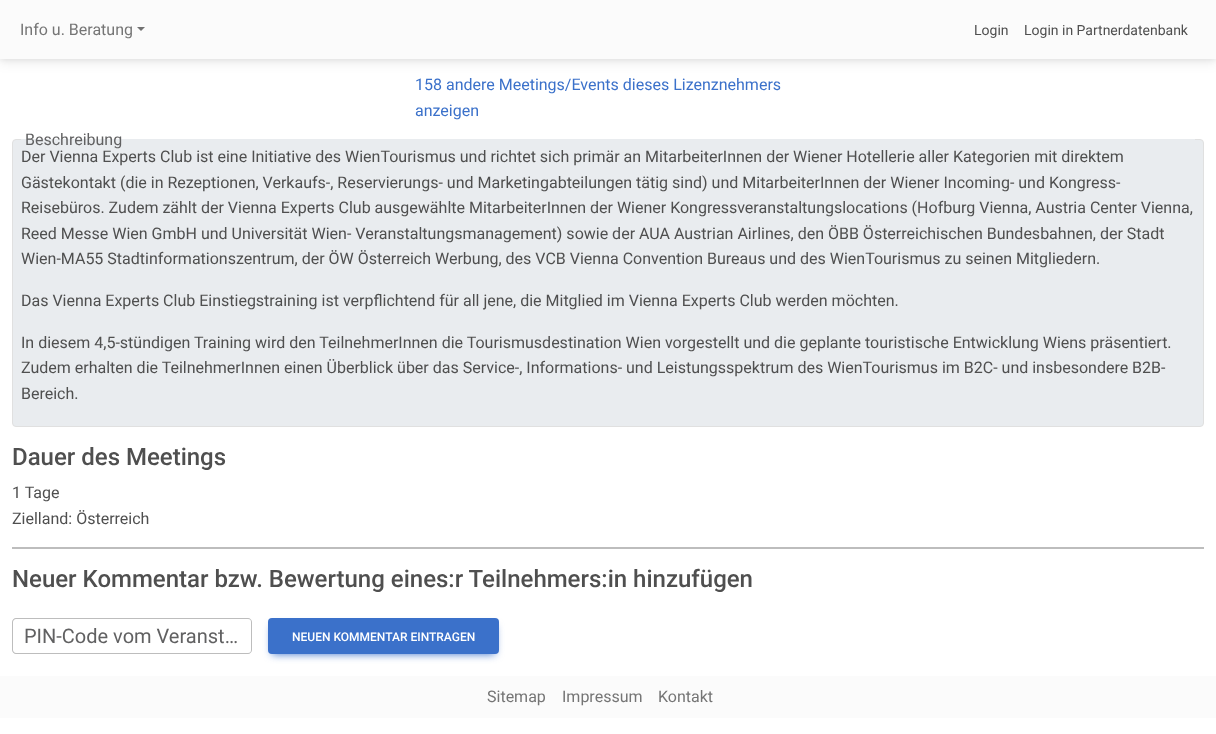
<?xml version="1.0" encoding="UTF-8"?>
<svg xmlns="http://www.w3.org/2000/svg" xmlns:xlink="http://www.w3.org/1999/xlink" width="1216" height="734">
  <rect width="100%" height="100%" fill="#ffffff" />
  <rect y="2" width="1216" height="59" fill="#000000" fill-opacity="0.05" filter="blur(2px)" />
  <rect y="4" width="1216" height="59" fill="#000000" fill-opacity="0.07" filter="blur(6px)" />
  <rect width="1216" height="59" fill="#fbfbfb" />
  <path d="M 137 27 h 8 l -4 4 z" fill="#717171" />
  <rect x="12.5" y="139.5" width="1191" height="287" rx="3.5" fill="#e9ecef" stroke="#e0e0e0" />
  <rect x="21" y="139" width="1174" height="1" fill="#e9ecef" />
  <rect x="12" y="547" width="1192" height="2" fill="#bdbdbd" />
  <path d="M 16 618 h 5 v 36 h -5 c -2 0 -4 -2 -4 -4 v -28 c 0 -2 2 -4 4 -4 z m 0 1 h 5 v 34 h -5 c -1.5 0 -3 -1.5 -3 -3 v -28 c 0 -1.5 1.5 -3 3 -3 z" fill="#bdbdbd" fill-rule="evenodd" />
  <rect x="21" y="618" width="181" height="1" fill="#bdbdbd" />
  <rect x="21" y="653" width="181" height="1" fill="#bdbdbd" />
  <rect x="272" y="626" width="223" height="28" fill="#3b71ca" filter="blur(4.5px)" />
  <rect x="268" y="618" width="231" height="36" rx="4" fill="#3b71ca" />
  <rect y="676" width="1216" height="42" fill="#fbfbfb" />
  <text x="20" y="35" style="font-family: Roboto; font-size: 16px; fill: #757575">Info u. Beratung</text>
  <text x="974" y="35" style="font-family: Roboto; font-size: 14px; fill: #4f4f4f">Login</text>
  <text x="1024" y="35" style="font-family: Roboto; font-size: 14px; fill: #4f4f4f">Login in Partnerdatenbank</text>
  <text x="415" y="90" style="font-family: Roboto; font-size: 16px; fill: #3b71ca">158 andere Meetings/Events dieses Lizenznehmers</text>
  <text x="415" y="116" style="font-family: Roboto; font-size: 16px; fill: #3b71ca">anzeigen</text>
  <text x="25" y="145" style="font-family: Roboto; font-size: 16px; fill: #616162">Beschreibung</text>
  <text x="21" y="162" style="font-family: Roboto; font-size: 16px; fill: #4f4f4f">Der Vienna Experts Club ist eine Initiative des WienTourismus und richtet sich primär an MitarbeiterInnen der Wiener Hotellerie aller Kategorien mit direktem</text>
  <text x="21" y="188" style="font-family: Roboto; font-size: 16px; fill: #4f4f4f">Gästekontakt (die in Rezeptionen, Verkaufs-, Reservierungs- und Marketingabteilungen tätig sind) und MitarbeiterInnen der Wiener Incoming- und Kongress-</text>
  <text x="21" y="213" style="font-family: Roboto; font-size: 16px; fill: #4f4f4f">Reisebüros. Zudem zählt der Vienna Experts Club ausgewählte MitarbeiterInnen der Wiener Kongressveranstaltungslocations (Hofburg Vienna, Austria Center Vienna,</text>
  <text x="21" y="239" style="font-family: Roboto; font-size: 16px; fill: #4f4f4f">Reed Messe Wien GmbH und Universität Wien- Veranstaltungsmanagement) sowie der AUA Austrian Airlines, den ÖBB Österreichischen Bundesbahnen, der Stadt</text>
  <text x="21" y="264" style="font-family: Roboto; font-size: 16px; fill: #4f4f4f">Wien-MA55 Stadtinformationszentrum, der ÖW Österreich Werbung, des VCB Vienna Convention Bureaus und des WienTourismus zu seinen Mitgliedern.</text>
  <text x="21" y="306" style="font-family: Roboto; font-size: 16px; fill: #4f4f4f">Das Vienna Experts Club Einstiegstraining ist verpflichtend für all jene, die Mitglied im Vienna Experts Club werden möchten.</text>
  <text x="21" y="348" style="font-family: Roboto; font-size: 16px; fill: #4f4f4f">In diesem 4,5-stündigen Training wird den TeilnehmerInnen die Tourismusdestination Wien vorgestellt und die geplante touristische Entwicklung Wiens präsentiert.</text>
  <text x="21" y="373" style="font-family: Roboto; font-size: 16px; fill: #4f4f4f">Zudem erhalten die TeilnehmerInnen einen Überblick über das Service-, Informations- und Leistungsspektrum des WienTourismus im B2C- und insbesondere B2B-</text>
  <text x="21" y="399" style="font-family: Roboto; font-size: 16px; fill: #4f4f4f">Bereich.</text>
  <text x="12" y="465" style="font-family: Roboto; font-size: 24px; font-weight: 500; fill: #4f4f4f">Dauer des Meetings</text>
  <text x="12" y="498" style="font-family: Roboto; font-size: 16px; fill: #4f4f4f">1 Tage</text>
  <text x="12" y="524" style="font-family: Roboto; font-size: 16px; fill: #4f4f4f">Zielland: Österreich</text>
  <text x="12" y="587" style="font-family: Roboto; font-size: 24px; font-weight: 500; fill: #4f4f4f">Neuer Kommentar bzw. Bewertung eines:r Teilnehmers:in hinzufügen</text>
  <text x="24" y="643" style="font-family: Roboto; font-size: 20px; fill: #616162">PIN-Code vom Veranst…</text>
  <path d="M 202 618 h 46 c 2 0 4 2 4 4 v 28 c 0 2 -2 4 -4 4 h -46 z m 0 1 h 46 c 2 0 3 1 3 3 v 28 c 0 2 -1 3 -3 3 h -46 z" fill="#bdbdbd" fill-rule="evenodd" />
  <text x="292" y="641" style="font-family: Roboto; font-size: 12px; font-weight: 500; fill: #ffffff">NEUEN KOMMENTAR EINTRAGEN</text>
  <text x="487" y="702" style="font-family: Roboto; font-size: 16px; fill: #757575">Sitemap</text>
  <text x="562" y="702" style="font-family: Roboto; font-size: 16px; fill: #757575">Impressum</text>
  <text x="658" y="702" style="font-family: Roboto; font-size: 16px; fill: #757575">Kontakt</text>
</svg>
